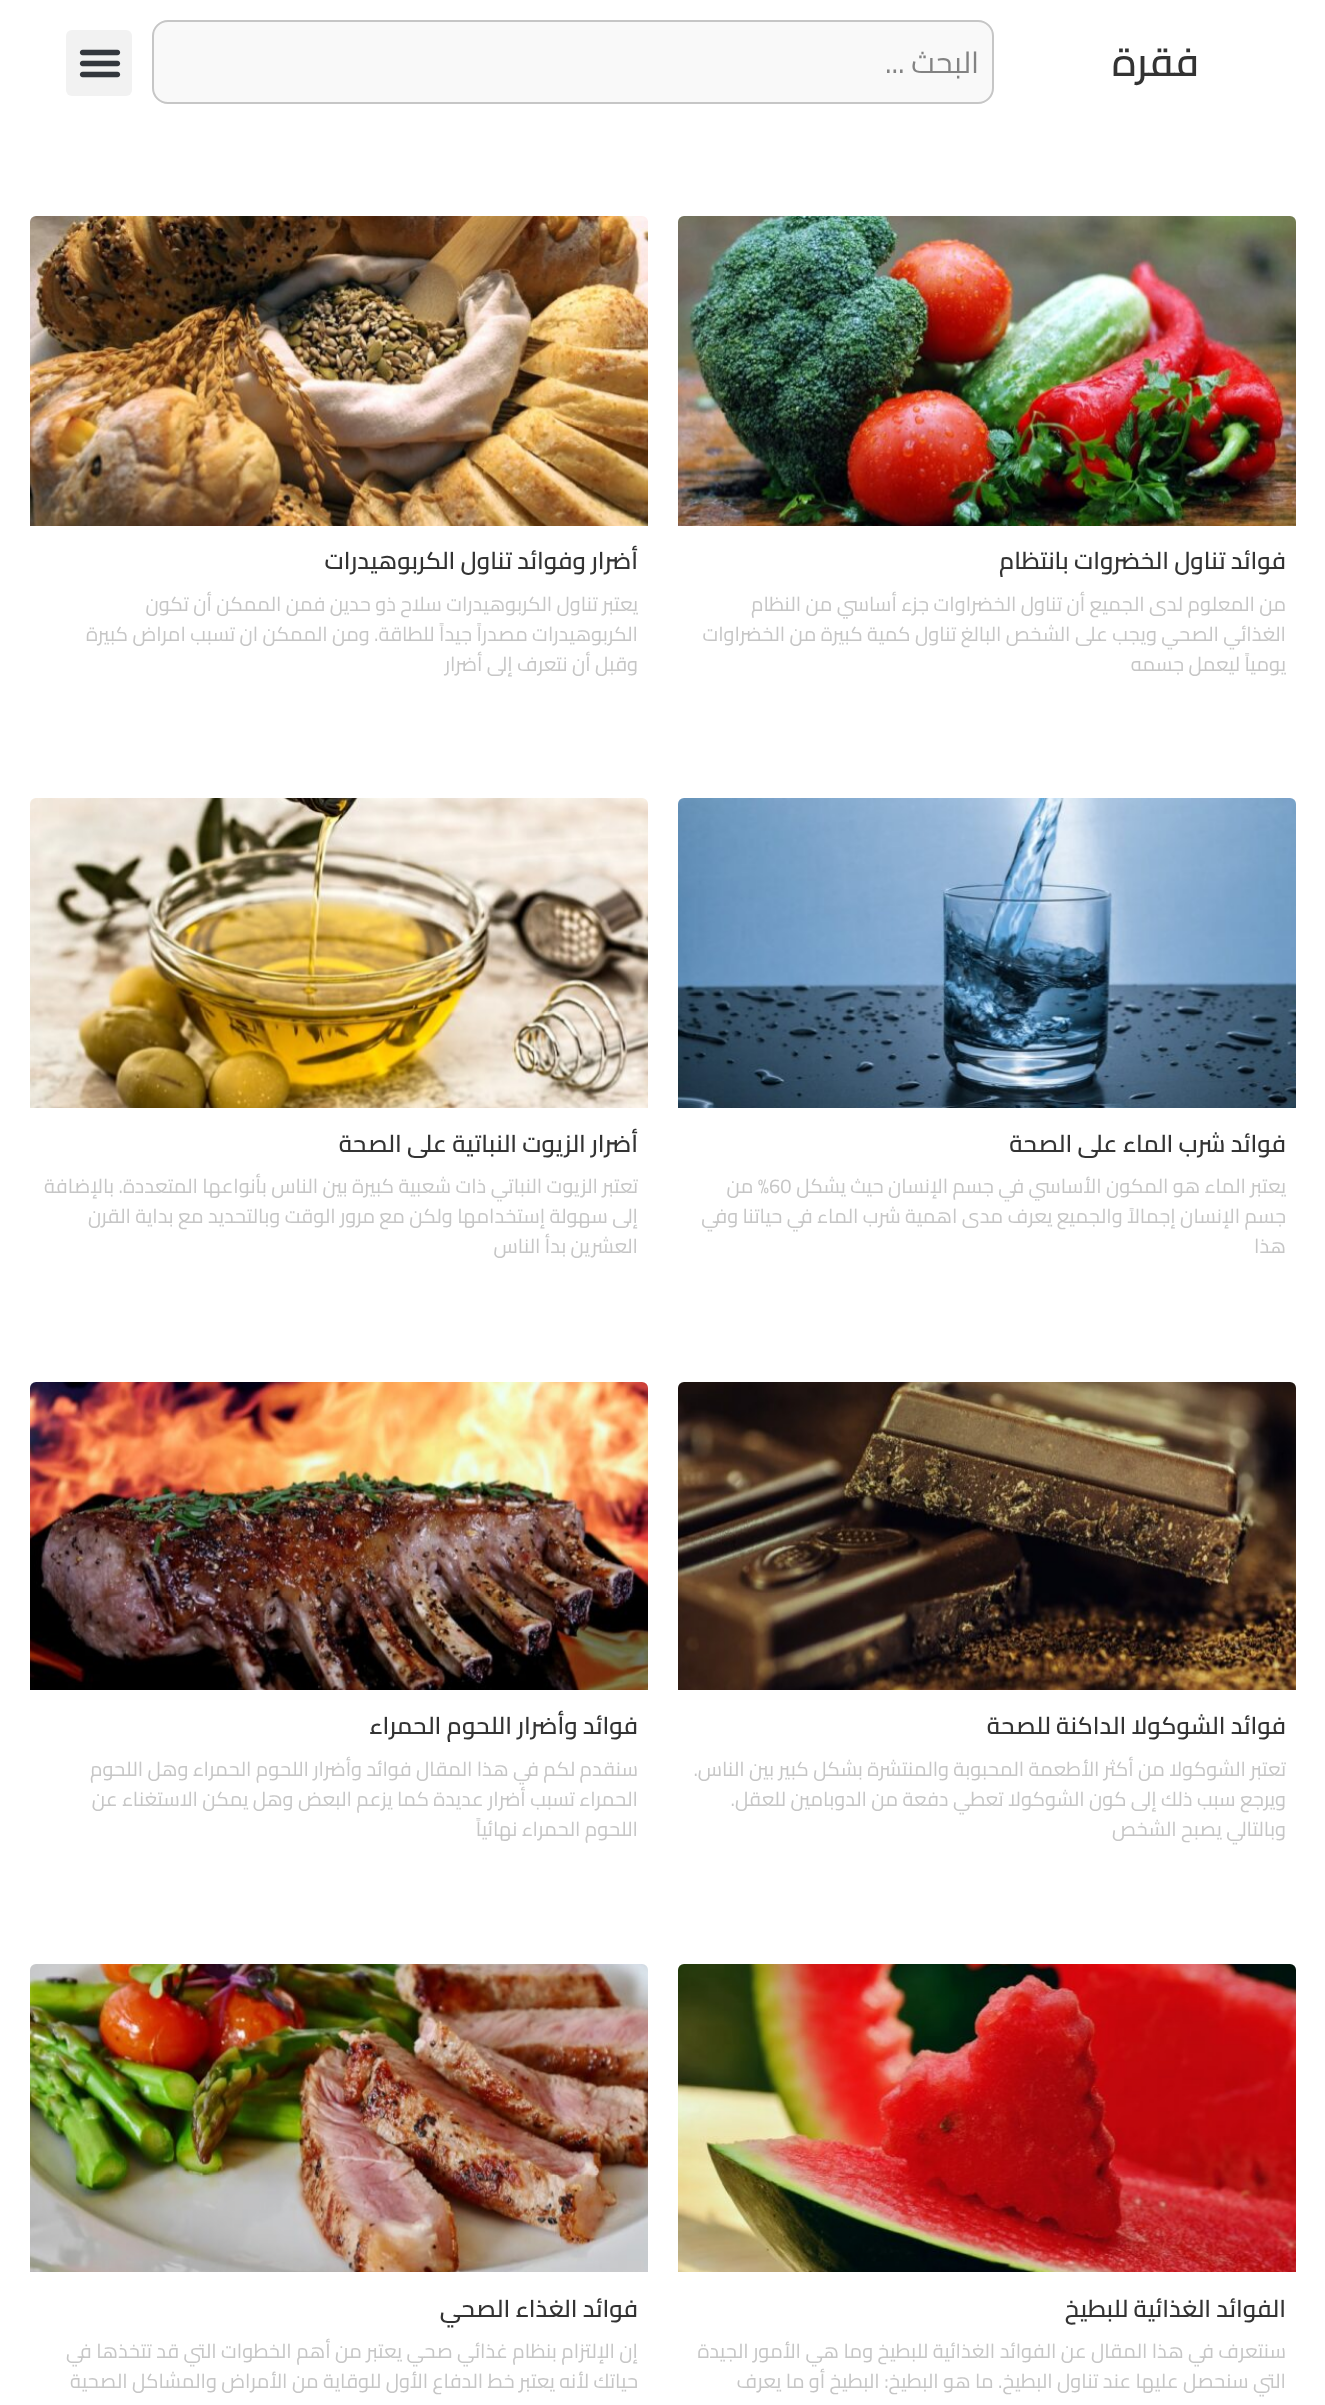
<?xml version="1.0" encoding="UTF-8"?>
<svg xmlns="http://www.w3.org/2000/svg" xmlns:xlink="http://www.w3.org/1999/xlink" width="1325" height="2405">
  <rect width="100%" height="100%" fill="#ffffff" />
  <rect x="153" y="21" width="840" height="82" rx="15" fill="#f9f9f9" stroke="#c6c6c6" stroke-width="2" />
  <rect x="66" y="30" width="66" height="66" rx="6" fill="#f2f2f2" />
  <image x="79" y="49" width="42" height="29" xlink:href="image1.png" />
  <image x="678" y="216" width="618" height="310" xlink:href="image2.png" />
  <image x="30" y="216" width="618" height="310" xlink:href="image3.png" />
  <image x="678" y="798" width="618" height="310" xlink:href="image4.png" />
  <image x="30" y="798" width="618" height="310" xlink:href="image5.png" />
  <image x="678" y="1382" width="618" height="308" xlink:href="image6.png" />
  <image x="30" y="1382" width="618" height="308" xlink:href="image7.png" />
  <image x="678" y="1964" width="618" height="308" xlink:href="image8.png" />
  <image x="30" y="1964" width="618" height="308" xlink:href="image9.png" />
  <text x="1199" y="76" style="font-family: Cairo; font-size: 40px; font-weight: 600; direction: rtl; fill: #333333">فقرة</text>
  <text x="979" y="73" style="font-family: Cairo; font-size: 30px; direction: rtl; fill: #828282">البحث ...</text>
  <text x="1286" y="569" style="font-family: Cairo; font-size: 24px; font-weight: 600; direction: rtl; fill: #333333">فوائد تناول الخضروات بانتظام</text>
  <text x="1286" y="611" style="font-family: Cairo; font-size: 20px; direction: rtl; fill: #c6c6c6">من المعلوم لدى الجميع أن تناول الخضراوات جزء أساسي من النظام</text>
  <text x="1286" y="641" style="font-family: Cairo; font-size: 20px; direction: rtl; fill: #c6c6c6">الغذائي الصحي ويجب على الشخص البالغ تناول كمية كبيرة من الخضراوات</text>
  <text x="1286" y="671" style="font-family: Cairo; font-size: 20px; direction: rtl; fill: #c6c6c6">يومياً ليعمل جسمه</text>
  <text x="638" y="569" style="font-family: Cairo; font-size: 24px; font-weight: 600; direction: rtl; fill: #333333">أضرار وفوائد تناول الكربوهيدرات</text>
  <text x="638" y="611" style="font-family: Cairo; font-size: 20px; direction: rtl; fill: #c6c6c6">يعتبر تناول الكربوهيدرات سلاح ذو حدين فمن الممكن أن تكون</text>
  <text x="638" y="641" style="font-family: Cairo; font-size: 20px; direction: rtl; fill: #c6c6c6">الكربوهيدرات مصدراً جيداً للطاقة. ومن الممكن ان تسبب امراض كبيرة</text>
  <text x="638" y="671" style="font-family: Cairo; font-size: 20px; direction: rtl; fill: #c6c6c6">وقبل أن نتعرف إلى أضرار</text>
  <text x="1286" y="1152" style="font-family: Cairo; font-size: 24px; font-weight: 600; direction: rtl; fill: #333333">فوائد شرب الماء على الصحة</text>
  <text x="1286" y="1193" style="font-family: Cairo; font-size: 20px; direction: rtl; fill: #c6c6c6">يعتبر الماء هو المكون الأساسي في جسم الإنسان حيث يشكل</text>
  <text x="769" y="1193" style="font-family: Cairo; font-size: 20px; fill: #c6c6c6">60</text>
  <text x="769" y="1193" style="font-family: Cairo; font-size: 20px; direction: rtl; fill: #c6c6c6">% من</text>
  <text x="1286" y="1223" style="font-family: Cairo; font-size: 20px; direction: rtl; fill: #c6c6c6">جسم الإنسان إجمالاً والجميع يعرف مدى اهمية شرب الماء في حياتنا وفي</text>
  <text x="1286" y="1253" style="font-family: Cairo; font-size: 20px; direction: rtl; fill: #c6c6c6">هذا</text>
  <text x="638" y="1152" style="font-family: Cairo; font-size: 24px; font-weight: 600; direction: rtl; fill: #333333">أضرار الزيوت النباتية على الصحة</text>
  <text x="638" y="1193" style="font-family: Cairo; font-size: 20px; direction: rtl; fill: #c6c6c6">تعتبر الزيوت النباتي ذات شعبية كبيرة بين الناس بأنواعها المتعددة. بالإضافة</text>
  <text x="638" y="1223" style="font-family: Cairo; font-size: 20px; direction: rtl; fill: #c6c6c6">إلى سهولة إستخدامها ولكن مع مرور الوقت وبالتحديد مع بداية القرن</text>
  <text x="638" y="1253" style="font-family: Cairo; font-size: 20px; direction: rtl; fill: #c6c6c6">العشرين بدأ الناس</text>
  <text x="1286" y="1734" style="font-family: Cairo; font-size: 24px; font-weight: 600; direction: rtl; fill: #333333">فوائد الشوكولا الداكنة للصحة</text>
  <text x="1286" y="1776" style="font-family: Cairo; font-size: 20px; direction: rtl; fill: #c6c6c6">تعتبر الشوكولا من أكثر الأطعمة المحبوبة والمنتشرة بشكل كبير بين الناس.</text>
  <text x="1286" y="1806" style="font-family: Cairo; font-size: 20px; direction: rtl; fill: #c6c6c6">ويرجع سبب ذلك إلى كون الشوكولا تعطي دفعة من الدوبامين للعقل.</text>
  <text x="1286" y="1836" style="font-family: Cairo; font-size: 20px; direction: rtl; fill: #c6c6c6">وبالتالي يصبح الشخص</text>
  <text x="638" y="1734" style="font-family: Cairo; font-size: 24px; font-weight: 600; direction: rtl; fill: #333333">فوائد وأضرار اللحوم الحمراء</text>
  <text x="638" y="1776" style="font-family: Cairo; font-size: 20px; direction: rtl; fill: #c6c6c6">سنقدم لكم في هذا المقال فوائد وأضرار اللحوم الحمراء وهل اللحوم</text>
  <text x="638" y="1806" style="font-family: Cairo; font-size: 20px; direction: rtl; fill: #c6c6c6">الحمراء تسبب أضرار عديدة كما يزعم البعض وهل يمكن الاستغناء عن</text>
  <text x="638" y="1836" style="font-family: Cairo; font-size: 20px; direction: rtl; fill: #c6c6c6">اللحوم الحمراء نهائياً</text>
  <text x="1286" y="2317" style="font-family: Cairo; font-size: 24px; font-weight: 600; direction: rtl; fill: #333333">الفوائد الغذائية للبطيخ</text>
  <text x="1286" y="2358" style="font-family: Cairo; font-size: 20px; direction: rtl; fill: #c6c6c6">سنتعرف في هذا المقال عن الفوائد الغذائية للبطيخ وما هي الأمور الجيدة</text>
  <text x="1286" y="2388" style="font-family: Cairo; font-size: 20px; direction: rtl; fill: #c6c6c6">التي سنحصل عليها عند تناول البطيخ. ما هو البطيخ: البطيخ أو ما يعرف</text>
  <text x="638" y="2317" style="font-family: Cairo; font-size: 24px; font-weight: 600; direction: rtl; fill: #333333">فوائد الغذاء الصحي</text>
  <text x="638" y="2358" style="font-family: Cairo; font-size: 20px; direction: rtl; fill: #c6c6c6">إن الإلتزام بنظام غذائي صحي يعتبر من أهم الخطوات التي قد تتخذها في</text>
  <text x="638" y="2388" style="font-family: Cairo; font-size: 20px; direction: rtl; fill: #c6c6c6">حياتك لأنه يعتبر خط الدفاع الأول للوقاية من الأمراض والمشاكل الصحية</text>
</svg>
